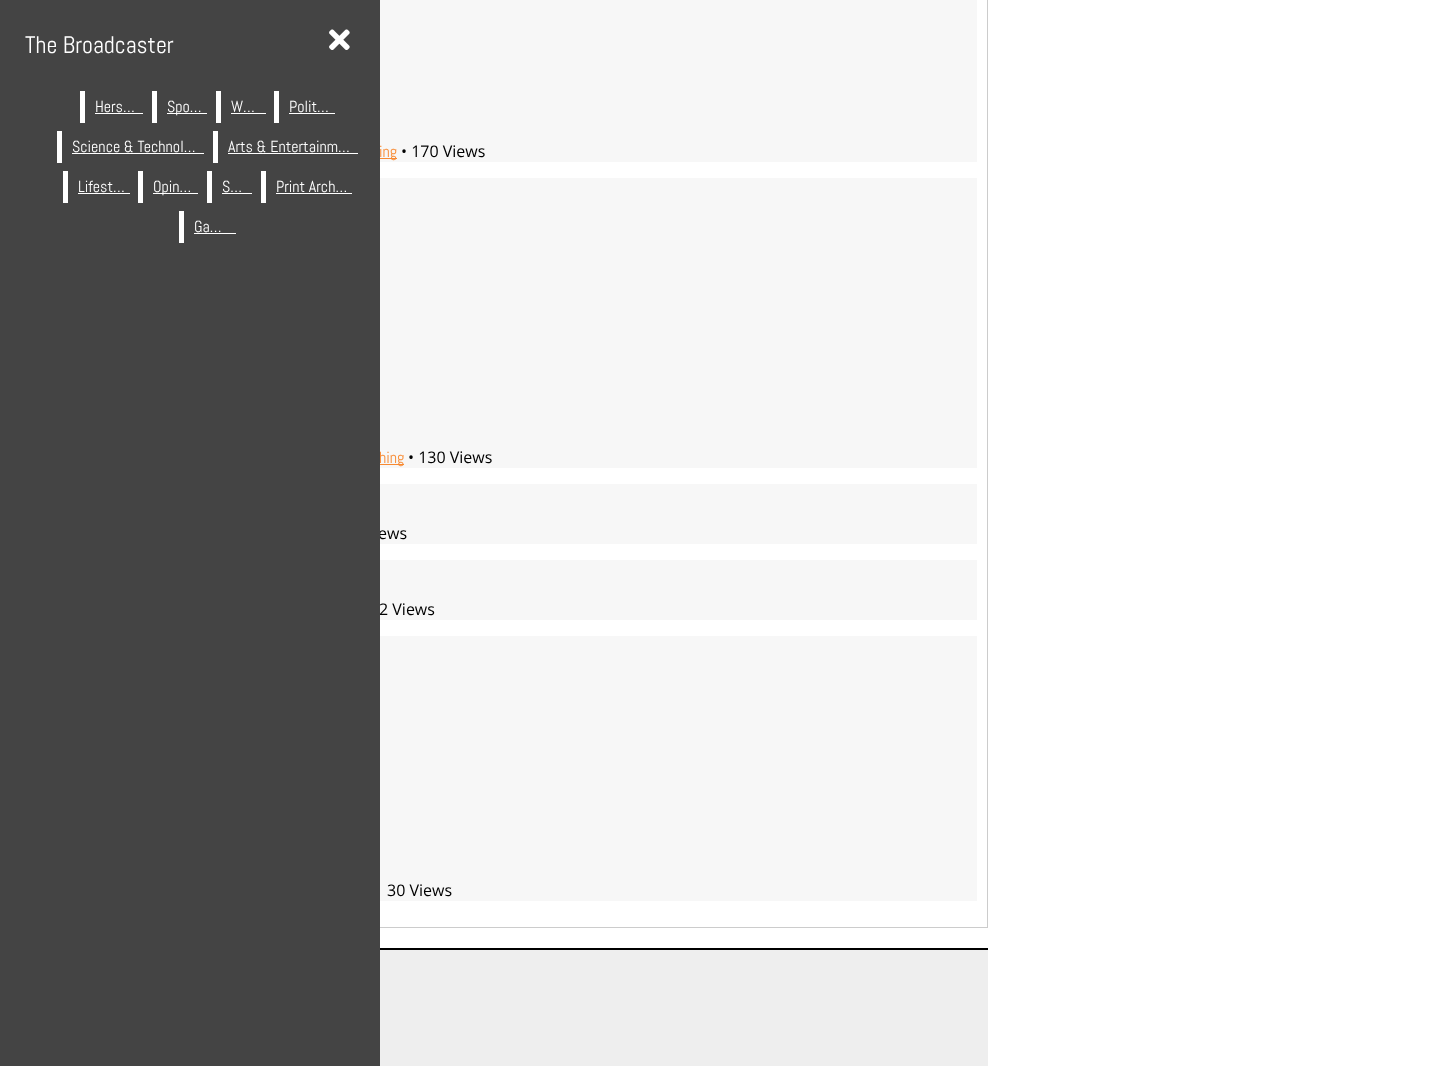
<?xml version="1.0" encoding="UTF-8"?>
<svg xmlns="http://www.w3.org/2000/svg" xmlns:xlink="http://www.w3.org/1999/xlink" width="1439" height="1066">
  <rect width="100%" height="100%" fill="#ffffff" />
  <rect x="380" y="948" width="608" height="2" fill="#000000" />
  <rect x="987" width="1" height="928" fill="#cccccc" />
  <rect x="380" y="927" width="608" height="1" fill="#cccccc" />
  <rect x="380" width="597" height="162" fill="#f7f7f7" />
  <rect x="380" y="158" width="17" height="1" fill="#f88a32" />
  <rect x="380" y="178" width="597" height="290" fill="#f7f7f7" />
  <rect x="380" y="464" width="24" height="1" fill="#f88a32" />
  <rect x="380" y="484" width="597" height="60" fill="#f7f7f7" />
  <rect x="380" y="560" width="597" height="60" fill="#f7f7f7" />
  <rect x="380" y="636" width="597" height="265" fill="#f7f7f7" />
  <rect x="380" y="950" width="608" height="116" fill="#eeeeee" />
  <text x="379" y="157" style="font-family: Abel; font-size: 16px; fill: #f88a32">ing</text>
  <text x="401" y="157" style="font-family: Open Sans; font-size: 16px; fill: #000000">• 170 Views</text>
  <text x="379" y="463" style="font-family: Abel; font-size: 16px; fill: #f88a32">hing</text>
  <text x="408" y="463" style="font-family: Open Sans; font-size: 16px; fill: #000000">• 130 Views</text>
  <text x="378" y="539" style="font-family: Open Sans; font-size: 16px; fill: #000000">ews</text>
  <text x="379" y="615" style="font-family: Open Sans; font-size: 16px; fill: #000000">2 Views</text>
  <rect width="380" height="1066" fill="#444444" />
  <text x="194" y="232" style="font-family: Abel; font-size: 16px; fill: #ffffff">Ga…</text>
  <rect x="194" y="233" width="42" height="1" fill="#ffffff" />
  <text x="276" y="192" style="font-family: Abel; font-size: 16px; fill: #ffffff">Print Arch…</text>
  <rect x="276" y="193" width="76" height="1" fill="#ffffff" />
  <text x="222" y="192" style="font-family: Abel; font-size: 16px; fill: #ffffff">S…</text>
  <rect x="222" y="193" width="30" height="1" fill="#ffffff" />
  <rect x="153" y="193" width="45" height="1" fill="#ffffff" />
  <text x="153" y="192" style="font-family: Abel; font-size: 16px; fill: #ffffff">Opin…</text>
  <text x="78" y="192" style="font-family: Abel; font-size: 16px; fill: #ffffff">Lifest…</text>
  <rect x="78" y="193" width="52" height="1" fill="#ffffff" />
  <text x="228" y="152" style="font-family: Abel; font-size: 16px; fill: #ffffff">Arts &amp; Entertainm…</text>
  <rect x="228" y="153" width="130" height="1" fill="#ffffff" />
  <text x="72" y="152" style="font-family: Abel; font-size: 16px; fill: #ffffff">Science &amp; Technol…</text>
  <rect x="72" y="153" width="132" height="1" fill="#ffffff" />
  <text x="289" y="112" style="font-family: Abel; font-size: 16px; fill: #ffffff">Polit…</text>
  <rect x="289" y="113" width="46" height="1" fill="#ffffff" />
  <text x="231" y="112" style="font-family: Abel; font-size: 16px; fill: #ffffff">W…</text>
  <rect x="231" y="113" width="35" height="1" fill="#ffffff" />
  <rect x="167" y="113" width="40" height="1" fill="#ffffff" />
  <text x="167" y="112" style="font-family: Abel; font-size: 16px; fill: #ffffff">Spo…</text>
  <text x="95" y="112" style="font-family: Abel; font-size: 16px; fill: #ffffff">Hers…</text>
  <rect x="95" y="113" width="48" height="1" fill="#ffffff" />
  <rect x="179" y="211" width="5" height="32" fill="#ffffff" />
  <rect x="261" y="171" width="5" height="32" fill="#ffffff" />
  <rect x="207" y="171" width="5" height="32" fill="#ffffff" />
  <rect x="138" y="171" width="5" height="32" fill="#ffffff" />
  <rect x="63" y="171" width="5" height="32" fill="#ffffff" />
  <rect x="213" y="131" width="5" height="32" fill="#ffffff" />
  <rect x="57" y="131" width="5" height="32" fill="#ffffff" />
  <rect x="274" y="91" width="5" height="32" fill="#ffffff" />
  <rect x="216" y="91" width="5" height="32" fill="#ffffff" />
  <rect x="152" y="91" width="5" height="32" fill="#ffffff" />
  <rect x="80" y="91" width="5" height="32" fill="#ffffff" />
  <text x="25" y="53" style="font-family: Abel; font-size: 24px; fill: #ffffff">The Broadcaster</text>
  <image x="329" y="29" width="21" height="21" xlink:href="image1.png" />
  <text x="387" y="896" style="font-family: Open Sans; font-size: 16px; fill: #000000">30 Views</text>
</svg>
